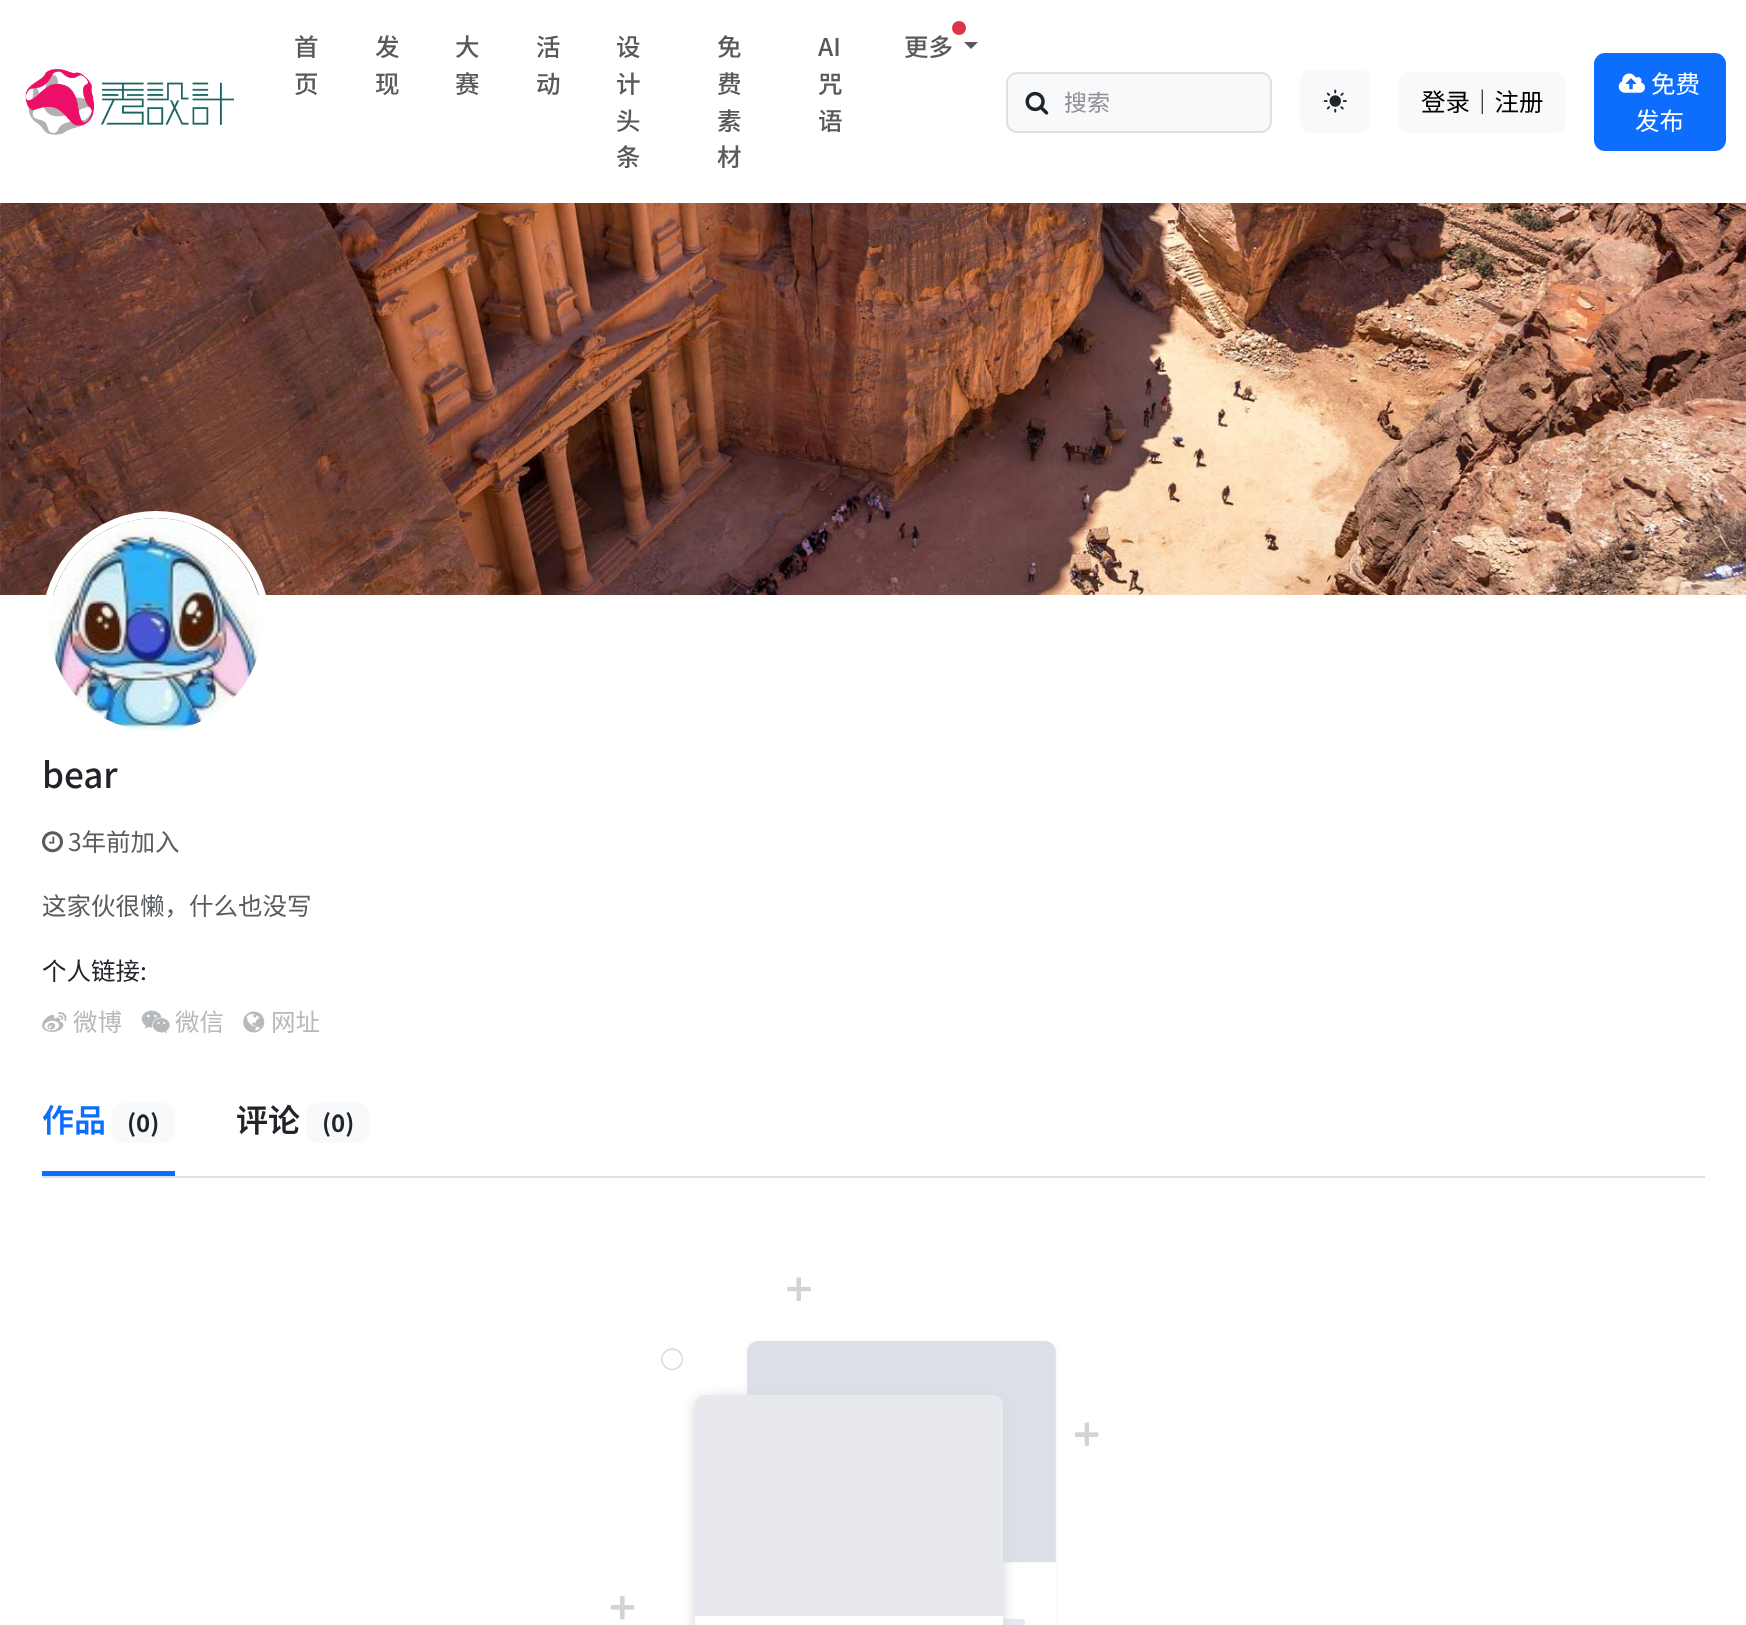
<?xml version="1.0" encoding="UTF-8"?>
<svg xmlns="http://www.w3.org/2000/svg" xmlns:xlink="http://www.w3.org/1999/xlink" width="1746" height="1625">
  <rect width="100%" height="100%" fill="#ffffff" />
  <image x="25" y="69" width="209" height="66" xlink:href="image1.png" />
  <circle cx="959" cy="28" r="7" fill="#dc3545" />
  <path d="M 964 42 h 14 l -7 7 z" fill="#595959" />
  <rect x="1007" y="73" width="264" height="59" rx="10" fill="#f8f9fa" stroke="#dee2e6" stroke-width="2" />
  <image x="1025" y="91" width="24" height="24" xlink:href="image2.png" />
  <rect x="1300" y="70" width="70" height="63" rx="11" fill="#f8f9fa" />
  <image x="1323" y="89" width="24" height="24" xlink:href="image3.png" />
  <rect x="1398" y="72" width="168" height="61" rx="11" fill="#f8f9fa" />
  <rect x="1595" y="54" width="130" height="96" rx="10" fill="#0d6efd" stroke="#0d6efd" stroke-width="2" />
  <image x="1618" y="73" width="27" height="20" xlink:href="image4.png" />
  <image x="0" y="203" width="1746" height="392" xlink:href="image5.png" />
  <circle cx="156" cy="625" r="110.5" fill="none" stroke="#ffffff" stroke-width="7" />
  <image x="49" y="518" width="211" height="213" xlink:href="image6.png" />
  <image x="42" y="831" width="21" height="22" xlink:href="image7.png" />
  <image x="42" y="1012" width="25" height="20" xlink:href="image8.png" />
  <image x="141" y="1010" width="29" height="24" xlink:href="image9.png" />
  <image x="243" y="1011" width="22" height="22" xlink:href="image10.png" />
  <rect x="42" y="1176" width="1663" height="2" fill="#dee2e6" />
  <rect x="42" y="1171" width="133" height="5" fill="#0d6efd" />
  <rect x="112" y="1103" width="63" height="40" rx="11" fill="#f8f9fa" />
  <rect x="306" y="1103" width="63" height="40" rx="11" fill="#f8f9fa" />
  <image x="610" y="1277" width="489" height="348" xlink:href="image11.png" />
  <text x="294" y="56" style="font-family: Noto Sans SC; font-size: 24.5px; font-weight: 500; fill: #595959">首</text>
  <text x="294" y="93" style="font-family: Noto Sans SC; font-size: 24.5px; font-weight: 500; fill: #595959">页</text>
  <text x="375" y="56" style="font-family: Noto Sans SC; font-size: 24.5px; font-weight: 500; fill: #595959">发</text>
  <text x="375" y="93" style="font-family: Noto Sans SC; font-size: 24.5px; font-weight: 500; fill: #595959">现</text>
  <text x="455" y="56" style="font-family: Noto Sans SC; font-size: 24.5px; font-weight: 500; fill: #595959">大</text>
  <text x="455" y="93" style="font-family: Noto Sans SC; font-size: 24.5px; font-weight: 500; fill: #595959">赛</text>
  <text x="536" y="56" style="font-family: Noto Sans SC; font-size: 24.5px; font-weight: 500; fill: #595959">活</text>
  <text x="536" y="93" style="font-family: Noto Sans SC; font-size: 24.5px; font-weight: 500; fill: #595959">动</text>
  <text x="616" y="56" style="font-family: Noto Sans SC; font-size: 24.5px; font-weight: 500; fill: #595959">设</text>
  <text x="616" y="93" style="font-family: Noto Sans SC; font-size: 24.5px; font-weight: 500; fill: #595959">计</text>
  <text x="616" y="130" style="font-family: Noto Sans SC; font-size: 24.5px; font-weight: 500; fill: #595959">头</text>
  <text x="616" y="166" style="font-family: Noto Sans SC; font-size: 24.5px; font-weight: 500; fill: #595959">条</text>
  <text x="717" y="56" style="font-family: Noto Sans SC; font-size: 24.5px; font-weight: 500; fill: #595959">免</text>
  <text x="717" y="93" style="font-family: Noto Sans SC; font-size: 24.5px; font-weight: 500; fill: #595959">费</text>
  <text x="717" y="130" style="font-family: Noto Sans SC; font-size: 24.5px; font-weight: 500; fill: #595959">素</text>
  <text x="717" y="166" style="font-family: Noto Sans SC; font-size: 24.5px; font-weight: 500; fill: #595959">材</text>
  <text x="818" y="56" style="font-family: Noto Sans SC; font-size: 24.5px; font-weight: 500; fill: #595959">AI</text>
  <text x="818" y="93" style="font-family: Noto Sans SC; font-size: 24.5px; font-weight: 500; fill: #595959">咒</text>
  <text x="818" y="130" style="font-family: Noto Sans SC; font-size: 24.5px; font-weight: 500; fill: #595959">语</text>
  <text x="904" y="56" style="font-family: Noto Sans SC; font-size: 24.5px; font-weight: 500; fill: #595959">更多</text>
  <text x="1064" y="111" style="font-family: Noto Sans SC; font-size: 23px; fill: #8d8f92">搜索</text>
  <text x="1421" y="111" style="font-family: Noto Sans SC; font-size: 24.5px; fill: #000000">登录｜注册</text>
  <text x="1651" y="93" style="font-family: Noto Sans SC; font-size: 24.5px; fill: #ffffff">免费</text>
  <text x="1635" y="130" style="font-family: Noto Sans SC; font-size: 24.5px; fill: #ffffff">发布</text>
  <text x="42" y="788" style="font-family: Noto Sans SC; font-size: 35px; font-weight: 500; fill: #212529">bear</text>
  <text x="68" y="851" style="font-family: Noto Sans SC; font-size: 24.5px; fill: #595c5f">3年前加入</text>
  <text x="42" y="915" style="font-family: Noto Sans SC; font-size: 24.5px; fill: #595c5f">这家伙很懒，什么也没写</text>
  <text x="42" y="980" style="font-family: Noto Sans SC; font-size: 24.5px; fill: #212529">个人链接:</text>
  <text x="73" y="1031" style="font-family: Noto Sans CJK SC; font-size: 24.5px; fill: #b6babe">微博</text>
  <text x="175" y="1031" style="font-family: Noto Sans CJK SC; font-size: 24.5px; fill: #b6babe">微信</text>
  <text x="271" y="1031" style="font-family: Noto Sans CJK SC; font-size: 24.5px; fill: #b6babe">网址</text>
  <text x="42" y="1132" style="font-family: Noto Sans SC; font-size: 32px; font-weight: 600; fill: #0d6efd">作品</text>
  <text x="127" y="1132" style="font-family: Noto Sans SC; font-size: 24px; font-weight: bold; fill: #212529">(0)</text>
  <text x="236" y="1132" style="font-family: Noto Sans SC; font-size: 32px; font-weight: 600; fill: #212529">评论</text>
  <text x="322" y="1132" style="font-family: Noto Sans SC; font-size: 24px; font-weight: bold; fill: #212529">(0)</text>
</svg>
